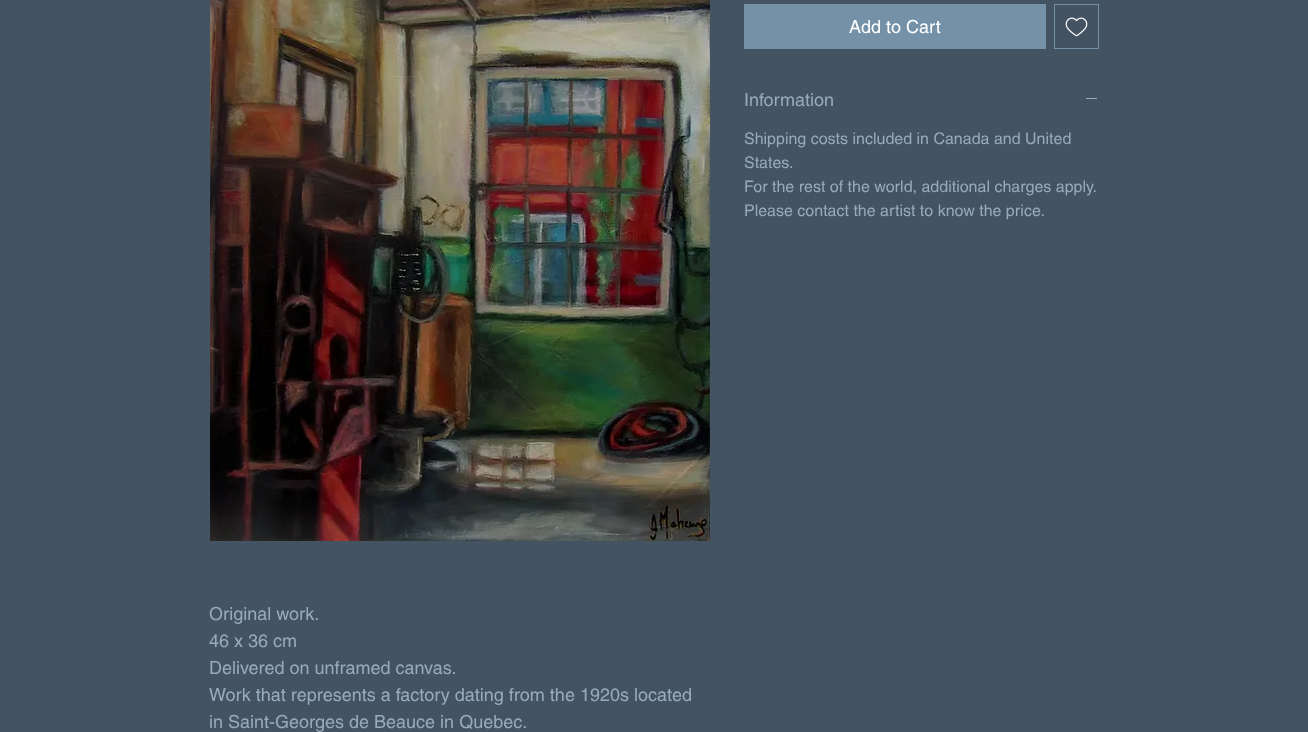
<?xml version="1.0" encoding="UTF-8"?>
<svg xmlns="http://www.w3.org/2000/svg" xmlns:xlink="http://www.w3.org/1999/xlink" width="1308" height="732">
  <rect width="100%" height="100%" fill="#435361" />
  <rect x="744" y="4" width="302" height="45" fill="#7491a8" />
  <rect x="1054.5" y="4.5" width="44" height="44" fill="none" stroke="#7491a8" />
  <image x="1065" y="17" width="23" height="20" xlink:href="image1.png" />
  <rect x="1086" y="98" width="11" height="1" fill="#97abba" />
  <image x="210" y="0" width="500" height="541" xlink:href="image2.png" />
  <text x="849" y="33" style="font-family: helvetica; font-size: 18px; fill: #ffffff">Add to Cart</text>
  <text x="744" y="106" style="font-family: helvetica; font-size: 18px; fill: #97abba">Information</text>
  <text x="744" y="144" style="font-family: helvetica; font-size: 16px; fill: #97abba">Shipping costs included in Canada and United</text>
  <text x="744" y="168" style="font-family: helvetica; font-size: 16px; fill: #97abba">States.</text>
  <text x="744" y="192" style="font-family: helvetica; font-size: 16px; fill: #97abba">For the rest of the world, additional charges apply.</text>
  <text x="744" y="216" style="font-family: helvetica; font-size: 16px; fill: #97abba">Please contact the artist to know the price.</text>
  <text x="209" y="620" style="font-family: helvetica; font-size: 18px; fill: #97abba">Original work.</text>
  <text x="209" y="647" style="font-family: helvetica; font-size: 18px; fill: #97abba">46 x 36 cm</text>
  <text x="209" y="674" style="font-family: helvetica; font-size: 18px; fill: #97abba">Delivered on unframed canvas.</text>
  <text x="209" y="701" style="font-family: helvetica; font-size: 18px; fill: #97abba">Work that represents a factory dating from the 1920s located</text>
  <text x="209" y="728" style="font-family: helvetica; font-size: 18px; fill: #97abba">in Saint-Georges de Beauce in Quebec.</text>
</svg>
